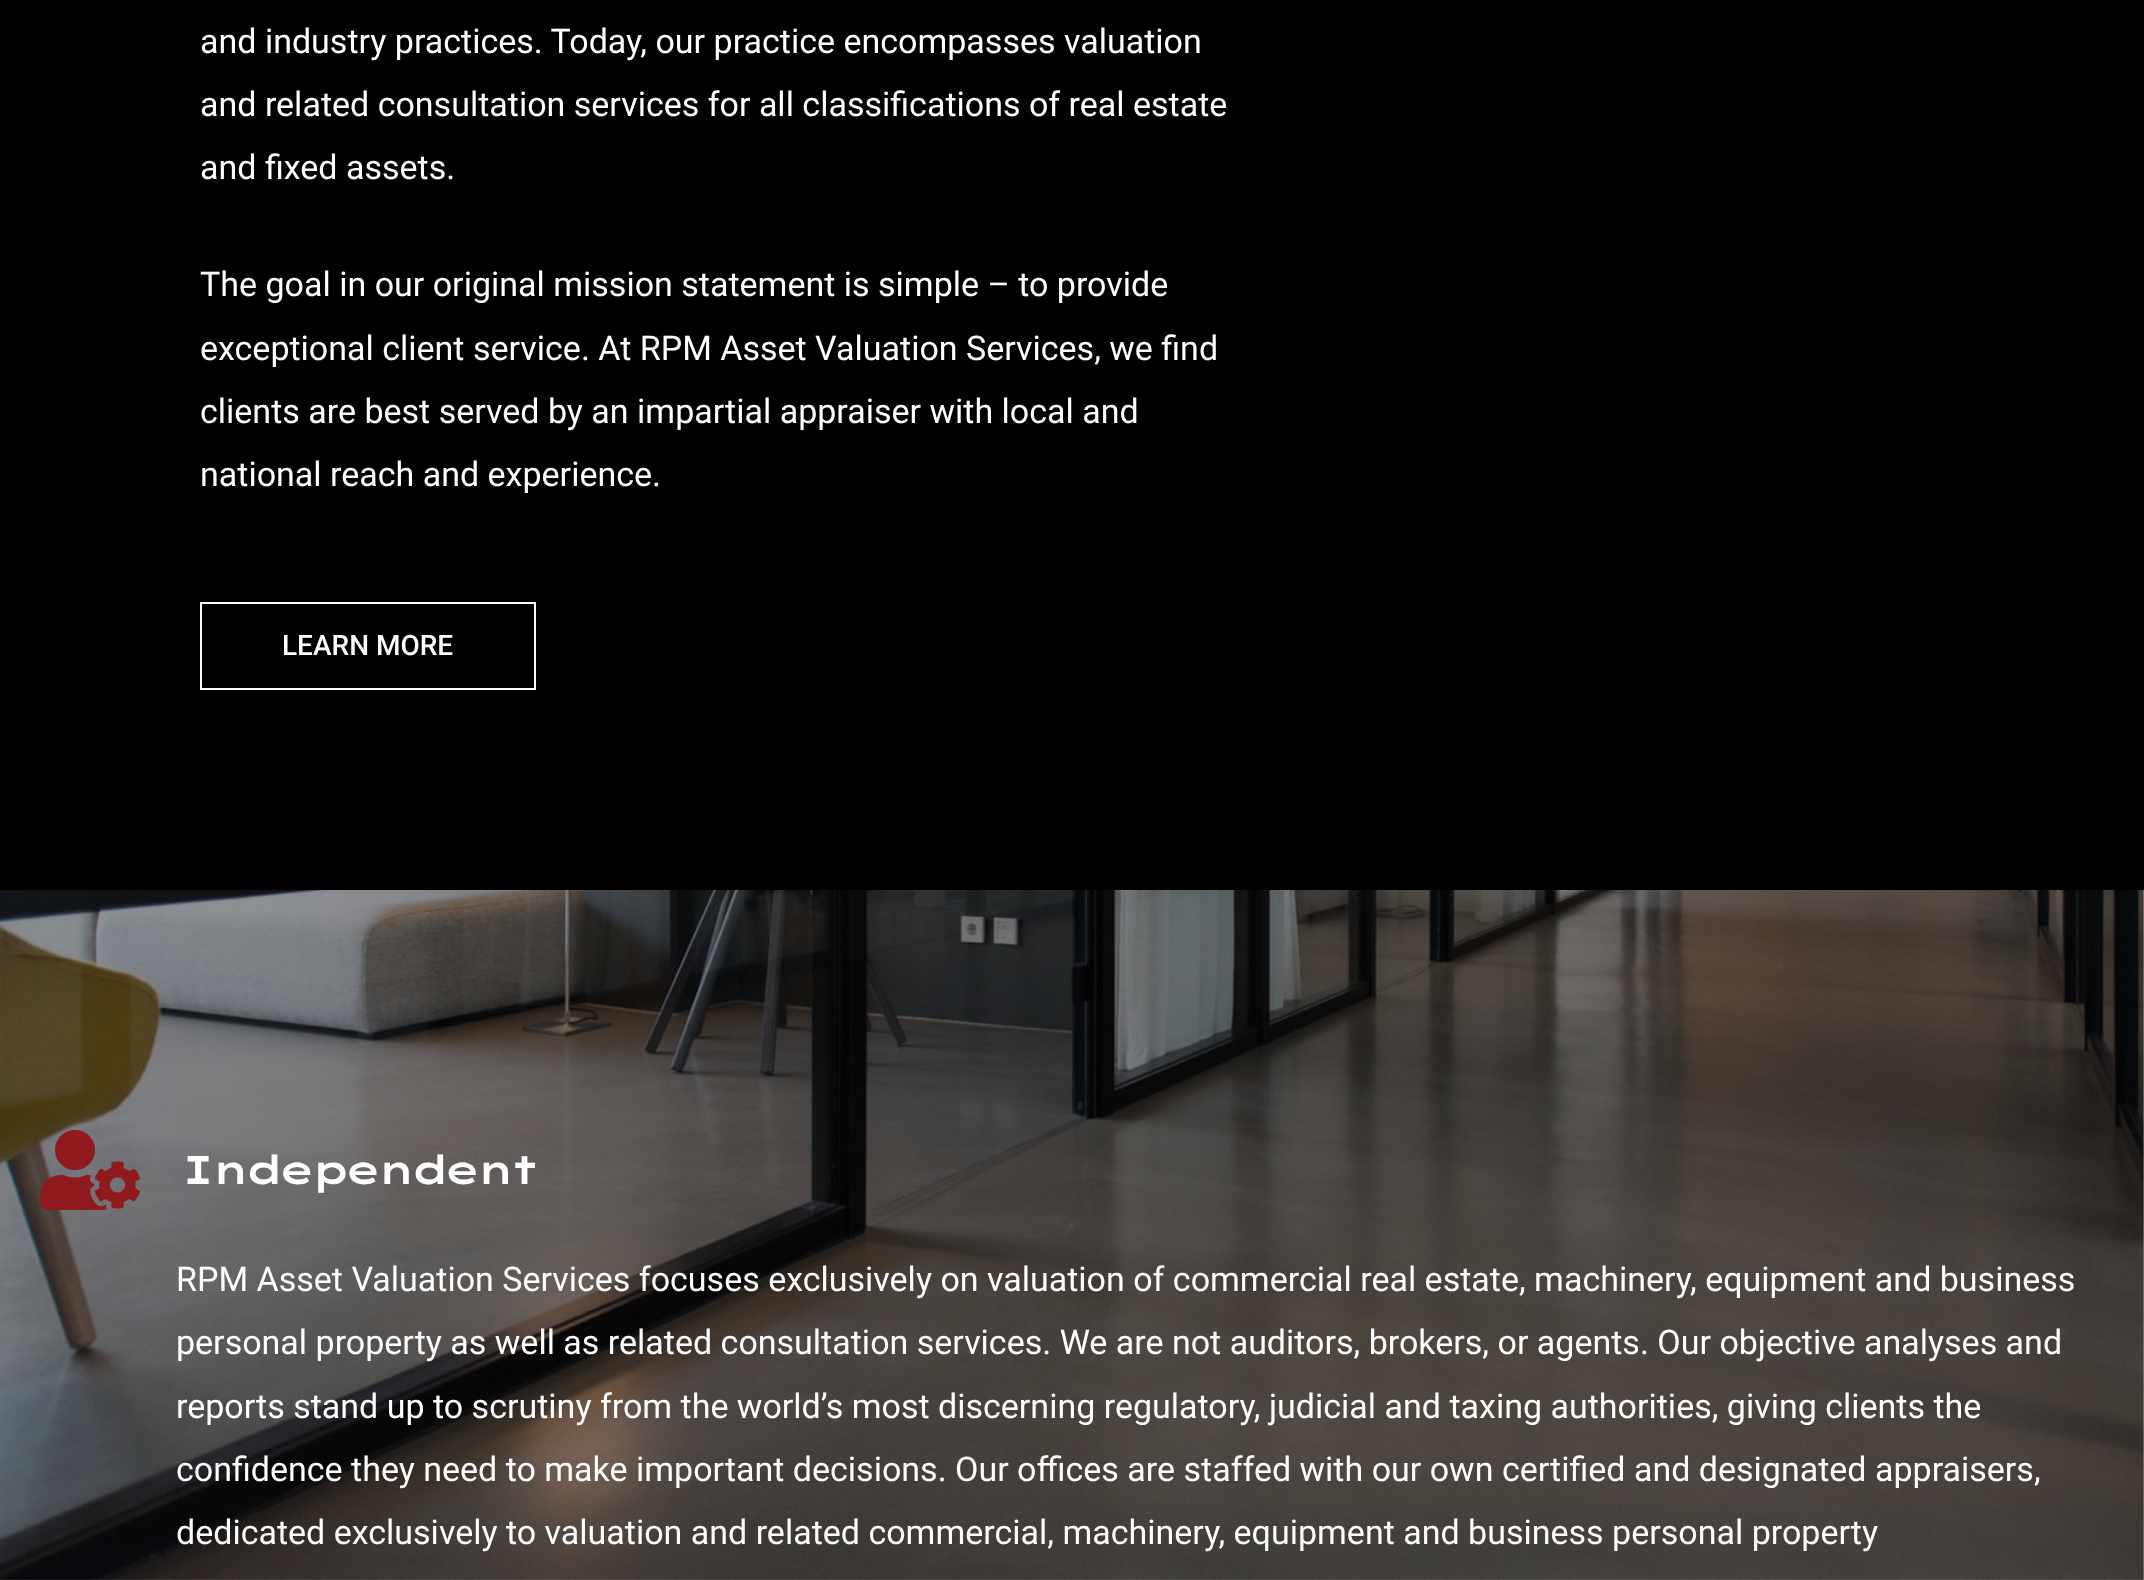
<?xml version="1.0" encoding="UTF-8"?>
<svg xmlns="http://www.w3.org/2000/svg" xmlns:xlink="http://www.w3.org/1999/xlink" width="2144" height="1580">
  <rect width="100%" height="100%" fill="#ffffff" />
  <rect width="2144" height="890" fill="#000000" />
  <rect x="201" y="603" width="334" height="86" fill="none" stroke="#ffffff" stroke-width="2" />
  <image x="0" y="890" width="2144" height="690" xlink:href="image1.png" />
  <image x="40" y="1130" width="100" height="80" xlink:href="image2.png" />
  <text x="200" y="53" style="font-family: Roboto; font-size: 34px; fill: #ffffff">and industry practices. Today, our practice encompasses valuation</text>
  <text x="200" y="116" style="font-family: Roboto; font-size: 34px; fill: #ffffff">and related consultation services for all classifications of real estate</text>
  <text x="200" y="179" style="font-family: Roboto; font-size: 34px; fill: #ffffff">and fixed assets.</text>
  <text x="200" y="296" style="font-family: Roboto; font-size: 34px; fill: #ffffff">The goal in our original mission statement is simple – to provide</text>
  <text x="200" y="360" style="font-family: Roboto; font-size: 34px; fill: #ffffff">exceptional client service. At RPM Asset Valuation Services, we find</text>
  <text x="200" y="423" style="font-family: Roboto; font-size: 34px; fill: #ffffff">clients are best served by an impartial appraiser with local and</text>
  <text x="200" y="486" style="font-family: Roboto; font-size: 34px; fill: #ffffff">national reach and experience.</text>
  <text x="282" y="655" style="font-family: Roboto; font-size: 28px; font-weight: 500; fill: #ffffff">LEARN MORE</text>
  <text x="180" y="1184" style="font-family: Lexend Zetta; font-size: 40px; font-weight: 600; letter-spacing: -6px; fill: #ffffff">Independent</text>
  <text x="176" y="1291" style="font-family: Roboto; font-size: 34px; fill: #ffffff">RPM Asset Valuation Services focuses exclusively on valuation of commercial real estate, machinery, equipment and business</text>
  <text x="176" y="1354" style="font-family: Roboto; font-size: 34px; fill: #ffffff">personal property as well as related consultation services. We are not auditors, brokers, or agents. Our objective analyses and</text>
  <text x="176" y="1418" style="font-family: Roboto; font-size: 34px; fill: #ffffff">reports stand up to scrutiny from the world’s most discerning regulatory, judicial and taxing authorities, giving clients the</text>
  <text x="176" y="1481" style="font-family: Roboto; font-size: 34px; fill: #ffffff">confidence they need to make important decisions. Our offices are staffed with our own certified and designated appraisers,</text>
  <text x="176" y="1544" style="font-family: Roboto; font-size: 34px; fill: #ffffff">dedicated exclusively to valuation and related commercial, machinery, equipment and business personal property</text>
</svg>
